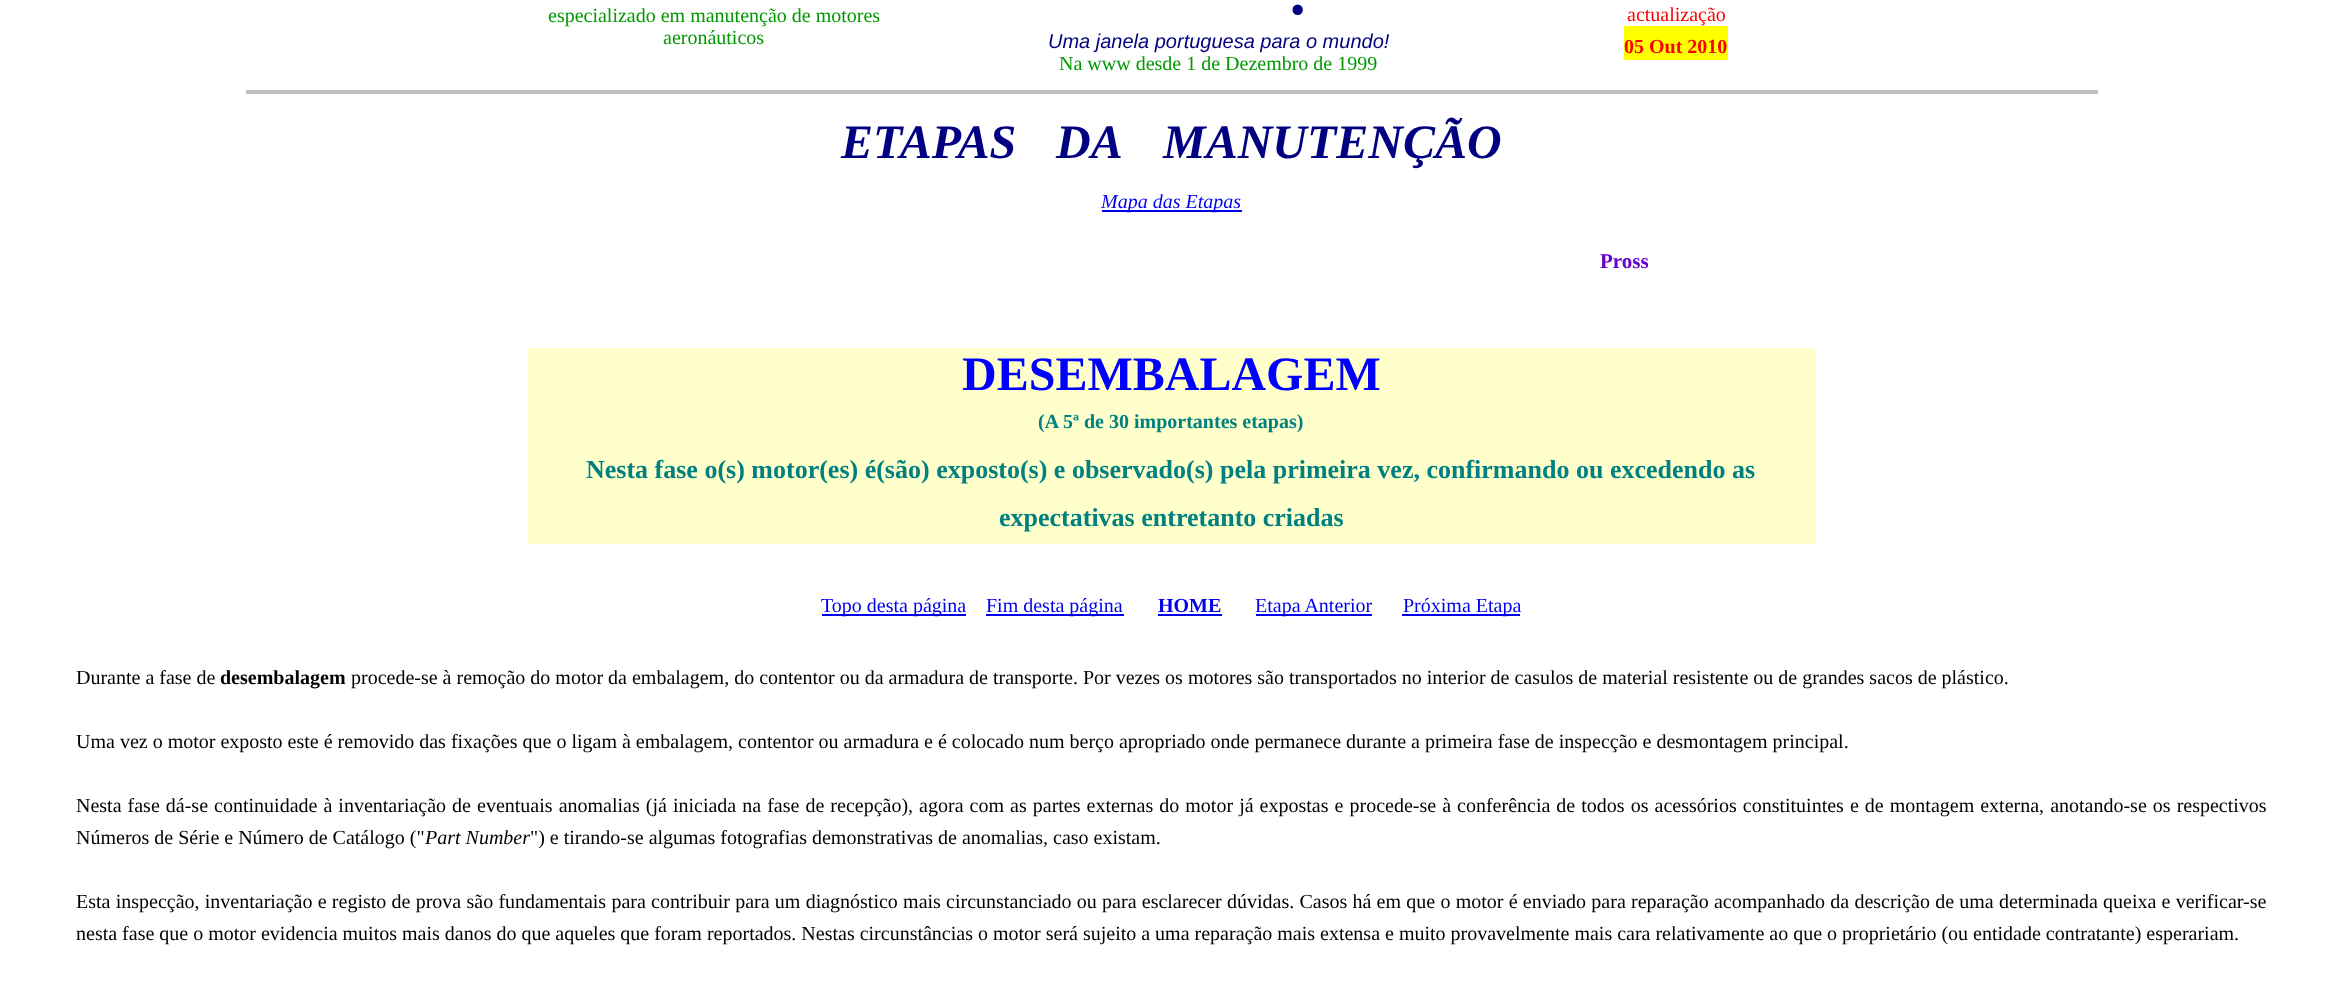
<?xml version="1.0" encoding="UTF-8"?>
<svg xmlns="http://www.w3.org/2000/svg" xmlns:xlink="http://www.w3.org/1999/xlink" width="2341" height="990">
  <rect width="100%" height="100%" fill="#ffffff" />
  <rect x="1624" y="26" width="104" height="34" fill="#ffff00" />
  <rect x="246" y="90" width="1852" height="4" fill="#c0c0c0" />
  <rect x="1102" y="210" width="140" height="2" fill="#0000ee" />
  <rect x="528" y="348" width="1288" height="196" fill="#ffffcc" />
  <rect x="822" y="614" width="144" height="2" fill="#0000ee" />
  <rect x="986" y="614" width="138" height="2" fill="#0000ee" />
  <rect x="1158" y="614" width="64" height="2" fill="#0000ee" />
  <rect x="1256" y="614" width="116" height="2" fill="#0000ee" />
  <rect x="1402" y="614" width="118" height="2" fill="#0000ee" />
  <text x="548" y="22" style="font-family: Liberation Serif; font-size: 20px; fill: #009900">especializado em manutenção de motores</text>
  <text x="663" y="44" style="font-family: Liberation Serif; font-size: 20px; fill: #009900">aeronáuticos</text>
  <text x="1292" y="14" style="font-family: Liberation Serif; font-size: 64px; font-weight: bold; font-style: italic; fill: #000080">.</text>
  <text x="1048" y="48" style="font-family: Liberation Sans; font-size: 20px; font-style: italic; fill: #000080">Uma janela portuguesa para o mundo!</text>
  <text x="1059" y="70" style="font-family: Liberation Serif; font-size: 20px; fill: #009900">Na www desde 1 de Dezembro de 1999</text>
  <text x="1627" y="21" style="font-family: Liberation Serif; font-size: 20px; fill: #ff0000">actualização</text>
  <text x="1624" y="53" style="font-family: Liberation Serif; font-size: 20px; font-weight: bold; fill: #ff0000">05 Out 2010</text>
  <text x="841" y="158" style="font-family: Liberation Serif; font-size: 48px; font-weight: bold; font-style: italic; fill: #000080">ETAPAS</text>
  <text x="1056" y="158" style="font-family: Liberation Serif; font-size: 48px; font-weight: bold; font-style: italic; fill: #000080">DA</text>
  <text x="1163" y="158" style="font-family: Liberation Serif; font-size: 48px; font-weight: bold; font-style: italic; fill: #000080">MANUTENÇÃO</text>
  <text x="1101" y="208" style="font-family: Liberation Serif; font-size: 20px; font-style: italic; fill: #0000ee">Mapa das Etapas</text>
  <text x="1600" y="268" style="font-family: Liberation Serif; font-size: 21px; font-weight: bold; fill: #6600cc">Pross</text>
  <text x="962" y="390" style="font-family: Liberation Serif; font-size: 48px; font-weight: bold; fill: #0000ff">DESEMBALAGEM</text>
  <text x="1038" y="428" style="font-family: Liberation Serif; font-size: 20px; font-weight: bold; fill: #008080">(A 5ª de 30 importantes etapas)</text>
  <text x="586" y="478" style="font-family: Liberation Serif; font-size: 26px; font-weight: bold; fill: #008080">Nesta fase o(s) motor(es) é(são) exposto(s) e observado(s) pela primeira vez, confirmando ou excedendo as</text>
  <text x="999" y="526" style="font-family: Liberation Serif; font-size: 26px; font-weight: bold; fill: #008080">expectativas entretanto criadas</text>
  <text x="821" y="612" style="font-family: Liberation Serif; font-size: 20px; fill: #0000ee">Topo desta página</text>
  <text x="986" y="612" style="font-family: Liberation Serif; font-size: 20px; fill: #0000ee">Fim desta página</text>
  <text x="1158" y="612" style="font-family: Liberation Serif; font-size: 20px; font-weight: bold; fill: #0000ee">HOME</text>
  <text x="1255" y="612" style="font-family: Liberation Serif; font-size: 20px; fill: #0000ee">Etapa Anterior</text>
  <text x="1403" y="612" style="font-family: Liberation Serif; font-size: 20px; fill: #0000ee">Próxima Etapa</text>
  <text x="76" y="684" style="font-family: Liberation Serif; font-size: 20px; fill: #000000">Durante a fase de</text>
  <text x="220" y="684" style="font-family: Liberation Serif; font-size: 20px; font-weight: bold; fill: #000000">desembalagem</text>
  <text x="351" y="684" style="font-family: Liberation Serif; font-size: 20px; fill: #000000">procede-se à remoção do motor da embalagem, do contentor ou da armadura de transporte. Por vezes os motores são transportados no interior de casulos de material resistente ou de grandes sacos de plástico.</text>
  <text x="76" y="748" style="font-family: Liberation Serif; font-size: 20px; fill: #000000">Uma vez o motor exposto este é removido das fixações que o ligam à embalagem, contentor ou armadura e é colocado num berço apropriado onde permanece durante a primeira fase de inspecção e desmontagem principal.</text>
  <text x="76" y="812" word-spacing="1.05" style="font-family: Liberation Serif; font-size: 20px; fill: #000000">Nesta fase dá-se continuidade à inventariação de eventuais anomalias (já iniciada na fase de recepção), agora com as partes externas do motor já expostas e procede-se à conferência de todos os acessórios constituintes e de montagem externa, anotando-se os respectivos</text>
  <text x="76" y="844" style="font-family: Liberation Serif; font-size: 20px; fill: #000000">Números de Série e Número de Catálogo ("</text>
  <text x="425" y="844" style="font-family: Liberation Serif; font-size: 20px; font-style: italic; fill: #000000">Part Number</text>
  <text x="530" y="844" style="font-family: Liberation Serif; font-size: 20px; fill: #000000">") e tirando-se algumas fotografias demonstrativas de anomalias, caso existam.</text>
  <text x="76" y="908" word-spacing="0.25" style="font-family: Liberation Serif; font-size: 20px; fill: #000000">Esta inspecção, inventariação e registo de prova são fundamentais para contribuir para um diagnóstico mais circunstanciado ou para esclarecer dúvidas. Casos há em que o motor é enviado para reparação acompanhado da descrição de uma determinada queixa e verificar-se</text>
  <text x="76" y="940" style="font-family: Liberation Serif; font-size: 20px; fill: #000000">nesta fase que o motor evidencia muitos mais danos do que aqueles que foram reportados. Nestas circunstâncias o motor será sujeito a uma reparação mais extensa e muito provavelmente mais cara relativamente ao que o proprietário (ou entidade contratante) esperariam.</text>
</svg>
